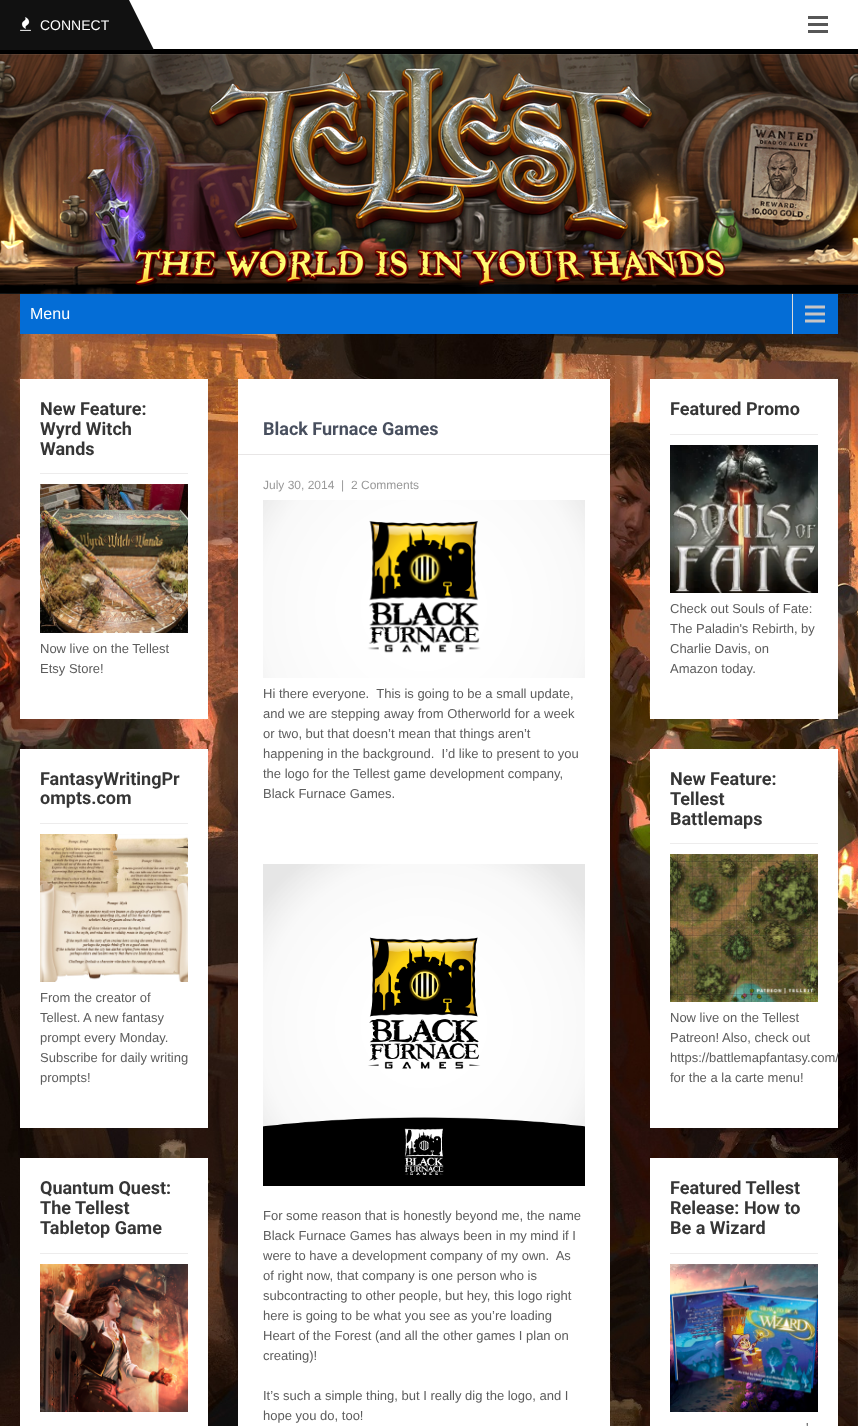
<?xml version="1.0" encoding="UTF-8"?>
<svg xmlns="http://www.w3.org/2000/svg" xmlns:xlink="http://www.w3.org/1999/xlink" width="858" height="1426">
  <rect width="100%" height="100%" fill="#ffffff" />
  <image x="0" y="294" width="858" height="1132" xlink:href="image1.png" />
  <rect y="49" width="858" height="5" fill="#000000" />
  <rect width="129" height="50" fill="#111111" />
  <image x="20" y="17" width="11" height="14" xlink:href="image2.png" />
  <path d="M 129 50 v -50 l 25 50 z" fill="#111111" />
  <image x="808" y="16" width="20" height="17" xlink:href="image3.png" />
  <image x="0" y="54" width="858" height="240" xlink:href="image4.png" />
  <rect x="20" y="294" width="818" height="40" fill="#046dd6" />
  <image x="792" y="294" width="33" height="40" xlink:href="image5.png" />
  <rect x="20" y="379" width="188" height="340" fill="#ffffff" />
  <rect x="40" y="473" width="148" height="1" fill="#edecec" />
  <image x="40" y="484" width="148" height="149" xlink:href="image6.png" />
  <rect x="20" y="749" width="188" height="379" fill="#ffffff" />
  <rect x="40" y="823" width="148" height="1" fill="#edecec" />
  <image x="40" y="834" width="148" height="148" xlink:href="image7.png" />
  <rect x="20" y="1158" width="188" height="268" fill="#ffffff" />
  <rect x="40" y="1253" width="148" height="1" fill="#edecec" />
  <image x="40" y="1264" width="148" height="148" xlink:href="image8.png" />
  <rect x="238" y="379" width="372" height="1047" fill="#ffffff" />
  <rect x="238" y="454" width="372" height="1" fill="#e8e6e6" />
  <image x="263" y="500" width="322" height="178" xlink:href="image9.png" />
  <image x="263" y="864" width="322" height="322" xlink:href="image10.png" />
  <rect x="650" y="379" width="188" height="340" fill="#ffffff" />
  <rect x="670" y="434" width="148" height="1" fill="#edecec" />
  <image x="670" y="445" width="148" height="148" xlink:href="image11.png" />
  <rect x="650" y="749" width="188" height="379" fill="#ffffff" />
  <rect x="670" y="843" width="148" height="1" fill="#edecec" />
  <image x="670" y="854" width="148" height="148" xlink:href="image12.png" />
  <rect x="650" y="1158" width="188" height="268" fill="#ffffff" />
  <rect x="670" y="1253" width="148" height="1" fill="#edecec" />
  <image x="670" y="1264" width="148" height="148" xlink:href="image13.png" />
  <text x="40" y="30" style="font-family: Liberation Sans; font-size: 14px; fill: #ffffff">CONNECT</text>
  <text x="30" y="319" style="font-family: Liberation Sans; font-size: 16px; fill: #ffffff">Menu</text>
  <text x="40" y="415" style="font-family: Roboto; font-size: 18px; font-weight: bold; fill: #363636">New Feature:</text>
  <text x="40" y="435" style="font-family: Roboto; font-size: 18px; font-weight: bold; fill: #363636">Wyrd Witch</text>
  <text x="40" y="455" style="font-family: Roboto; font-size: 18px; font-weight: bold; fill: #363636">Wands</text>
  <text x="40" y="653" style="font-family: Liberation Sans; font-size: 13px; fill: #5c5c5c">Now live on the Tellest</text>
  <text x="40" y="673" style="font-family: Liberation Sans; font-size: 13px; fill: #5c5c5c">Etsy Store!</text>
  <text x="40" y="785" style="font-family: Roboto; font-size: 18px; font-weight: bold; fill: #363636">FantasyWritingPr</text>
  <text x="40" y="804" style="font-family: Roboto; font-size: 18px; font-weight: bold; fill: #363636">ompts.com</text>
  <text x="40" y="1002" style="font-family: Liberation Sans; font-size: 13px; fill: #5c5c5c">From the creator of</text>
  <text x="40" y="1022" style="font-family: Liberation Sans; font-size: 13px; fill: #5c5c5c">Tellest.</text>
  <text x="83" y="1022" style="font-family: Liberation Sans; font-size: 13px; fill: #5c5c5c">A new fantasy</text>
  <text x="40" y="1042" style="font-family: Liberation Sans; font-size: 13px; fill: #5c5c5c">prompt every Monday.</text>
  <text x="40" y="1062" style="font-family: Liberation Sans; font-size: 13px; fill: #5c5c5c">Subscribe for daily writing</text>
  <text x="40" y="1082" style="font-family: Liberation Sans; font-size: 13px; fill: #5c5c5c">prompts!</text>
  <text x="40" y="1194" style="font-family: Roboto; font-size: 18px; font-weight: bold; fill: #363636">Quantum Quest:</text>
  <text x="40" y="1214" style="font-family: Roboto; font-size: 18px; font-weight: bold; fill: #363636">The Tellest</text>
  <text x="40" y="1234" style="font-family: Roboto; font-size: 18px; font-weight: bold; fill: #363636">Tabletop Game</text>
  <text x="263" y="435" style="font-family: Roboto; font-size: 18px; font-weight: bold; fill: #484f5e">Black Furnace Games</text>
  <text x="263" y="489" style="font-family: Liberation Sans; font-size: 12px; fill: #999999">July 30, 2014</text>
  <text x="341" y="489" style="font-family: Liberation Sans; font-size: 12px; fill: #999999">|</text>
  <text x="351" y="489" style="font-family: Liberation Sans; font-size: 12px; fill: #999999">2 Comments</text>
  <text x="263" y="698" style="font-family: Liberation Sans; font-size: 13px; fill: #5c5c5c" xml:space="preserve">Hi there everyone.  This is going to be a small update,</text>
  <text x="263" y="718" style="font-family: Liberation Sans; font-size: 13px; fill: #5c5c5c">and we are stepping away from Otherworld for a week</text>
  <text x="263" y="738" style="font-family: Liberation Sans; font-size: 13px; fill: #5c5c5c">or two, but that doesn’t mean that things aren’t</text>
  <text x="263" y="758" style="font-family: Liberation Sans; font-size: 13px; fill: #5c5c5c" xml:space="preserve">happening in the background.  I’d like to present to you</text>
  <text x="263" y="778" style="font-family: Liberation Sans; font-size: 13px; fill: #5c5c5c">the logo for the Tellest game development company,</text>
  <text x="263" y="798" style="font-family: Liberation Sans; font-size: 13px; fill: #5c5c5c">Black Furnace Games.</text>
  <text x="263" y="1220" style="font-family: Liberation Sans; font-size: 13px; fill: #5c5c5c">For some reason that is honestly beyond me, the name</text>
  <text x="263" y="1240" style="font-family: Liberation Sans; font-size: 13px; fill: #5c5c5c">Black Furnace Games has always been in my mind if I</text>
  <text x="263" y="1260" style="font-family: Liberation Sans; font-size: 13px; fill: #5c5c5c" xml:space="preserve">were to have a development company of my own.  As</text>
  <text x="263" y="1280" style="font-family: Liberation Sans; font-size: 13px; fill: #5c5c5c">of right now, that company is one person who is</text>
  <text x="263" y="1300" style="font-family: Liberation Sans; font-size: 13px; fill: #5c5c5c">subcontracting to other people, but hey, this logo right</text>
  <text x="263" y="1320" style="font-family: Liberation Sans; font-size: 13px; fill: #5c5c5c">here is going to be what you see as you’re loading</text>
  <text x="263" y="1340" style="font-family: Liberation Sans; font-size: 13px; fill: #5c5c5c">Heart of the Forest (and all the other games I plan on</text>
  <text x="263" y="1360" style="font-family: Liberation Sans; font-size: 13px; fill: #5c5c5c">creating)!</text>
  <text x="263" y="1400" style="font-family: Liberation Sans; font-size: 13px; fill: #5c5c5c">It’s such a simple thing, but I really dig the logo, and I</text>
  <text x="263" y="1420" style="font-family: Liberation Sans; font-size: 13px; fill: #5c5c5c">hope you do, too!</text>
  <text x="670" y="415" style="font-family: Roboto; font-size: 18px; font-weight: bold; fill: #363636">Featured Promo</text>
  <text x="670" y="613" style="font-family: Liberation Sans; font-size: 13px; fill: #5c5c5c">Check out Souls of Fate:</text>
  <text x="670" y="633" style="font-family: Liberation Sans; font-size: 13px; fill: #5c5c5c">The Paladin's Rebirth, by</text>
  <text x="670" y="653" style="font-family: Liberation Sans; font-size: 13px; fill: #5c5c5c">Charlie Davis, on</text>
  <text x="670" y="673" style="font-family: Liberation Sans; font-size: 13px; fill: #5c5c5c">Amazon today.</text>
  <text x="670" y="785" style="font-family: Roboto; font-size: 18px; font-weight: bold; fill: #363636">New Feature:</text>
  <text x="670" y="805" style="font-family: Roboto; font-size: 18px; font-weight: bold; fill: #363636">Tellest</text>
  <text x="670" y="825" style="font-family: Roboto; font-size: 18px; font-weight: bold; fill: #363636">Battlemaps</text>
  <text x="670" y="1022" style="font-family: Liberation Sans; font-size: 13px; fill: #5c5c5c">Now live on the Tellest</text>
  <text x="670" y="1042" style="font-family: Liberation Sans; font-size: 13px; fill: #5c5c5c">Patreon! Also, check out</text>
  <text x="670" y="1062" style="font-family: Liberation Sans; font-size: 13px; fill: #5c5c5c">https://battlemapfantasy.com/</text>
  <text x="670" y="1082" style="font-family: Liberation Sans; font-size: 13px; fill: #5c5c5c">for the a la carte menu!</text>
  <text x="670" y="1194" style="font-family: Roboto; font-size: 18px; font-weight: bold; fill: #363636">Featured Tellest</text>
  <text x="670" y="1214" style="font-family: Roboto; font-size: 18px; font-weight: bold; fill: #363636">Release: How to</text>
  <text x="670" y="1234" style="font-family: Roboto; font-size: 18px; font-weight: bold; fill: #363636">Be a Wizard</text>
  <text x="806" y="1432" style="font-family: Liberation Sans; font-size: 13px; fill: #5c5c5c">'</text>
</svg>
